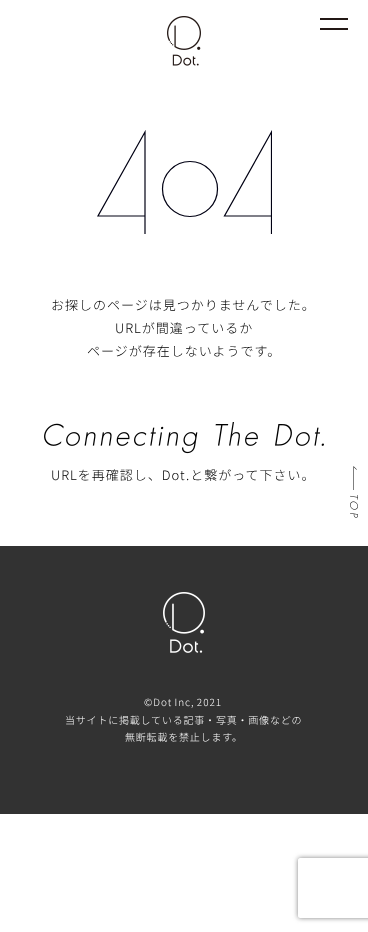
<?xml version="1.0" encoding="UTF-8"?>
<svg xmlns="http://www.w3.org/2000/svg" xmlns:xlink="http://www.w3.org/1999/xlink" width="368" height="932">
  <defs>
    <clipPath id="clip1"><rect x="97" y="130" width="175" height="104" /></clipPath>
    <clipPath id="clip2"><path d="M 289 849 h 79 v 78 h -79 z m 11 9 h 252 c 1 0 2 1 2 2 v 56 c 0 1 -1 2 -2 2 h -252 c -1 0 -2 -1 -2 -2 v -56 c 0 -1 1 -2 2 -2 z" clip-rule="evenodd" /></clipPath>
  </defs>
  <rect width="100%" height="100%" fill="#ffffff" />
  <image x="167" y="16" width="34" height="50" xlink:href="image1.png" />
  <rect x="320" y="18" width="28" height="2" fill="#231815" />
  <rect x="320" y="28" width="28" height="2" fill="#231815" />
  <path d="M 145 216 h -47 l 47 -84 v 102" fill="none" stroke="#000013" stroke-width="1.2" />
  <g clip-path="url(#clip1)">
    <path d="M 271.5 216 h -47 l 47 -84 v 102" fill="none" stroke="#000013" stroke-width="1.2" />
  </g>
  <circle cx="190" cy="189" r="27.5" fill="none" stroke="#000013" stroke-width="1.2" />
  <image x="44" y="422" width="280" height="32" xlink:href="image2.png" />
  <rect y="546" width="368" height="268" fill="#323232" />
  <image x="350" y="466" width="8" height="52" xlink:href="image3.png" />
  <image x="163" y="592" width="42" height="61" xlink:href="image4.png" />
  <g clip-path="url(#clip2)">
    <rect x="298" y="858" width="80" height="60" rx="2" fill="#808080" filter="blur(2.5px)" />
  </g>
  <text x="51" y="310" style="font-family: Noto Sans JP; font-size: 13px; font-weight: 300; letter-spacing: 1px; fill: #000000">お探しのページは見つかりませんでした。</text>
  <text x="115" y="333" style="font-family: Noto Sans JP; font-size: 13px; font-weight: 300; letter-spacing: 1px; fill: #000000">URLが間違っているか</text>
  <text x="87" y="356" style="font-family: Noto Sans JP; font-size: 13px; font-weight: 300; letter-spacing: 1px; fill: #000000">ページが存在しないようです。</text>
  <text x="51" y="480" style="font-family: Noto Sans JP; font-size: 13px; font-weight: 300; letter-spacing: 1px; fill: #000000">URLを再確認し、Dot.と繋がって下さい。</text>
  <text x="144" y="706" word-spacing="-1" style="font-family: Noto Sans JP; font-size: 10px; font-weight: 300; letter-spacing: 1px; fill: #ffffff">©︎Dot Inc, 2021</text>
  <text x="65" y="724" style="font-family: Noto Sans JP; font-size: 10px; font-weight: 300; letter-spacing: 0.8px; fill: #ffffff">当サイトに掲載している記事・写真・画像などの</text>
  <text x="125" y="741" style="font-family: Noto Sans JP; font-size: 10px; font-weight: 300; letter-spacing: 0.8px; fill: #ffffff">無断転載を禁止します。</text>
</svg>
